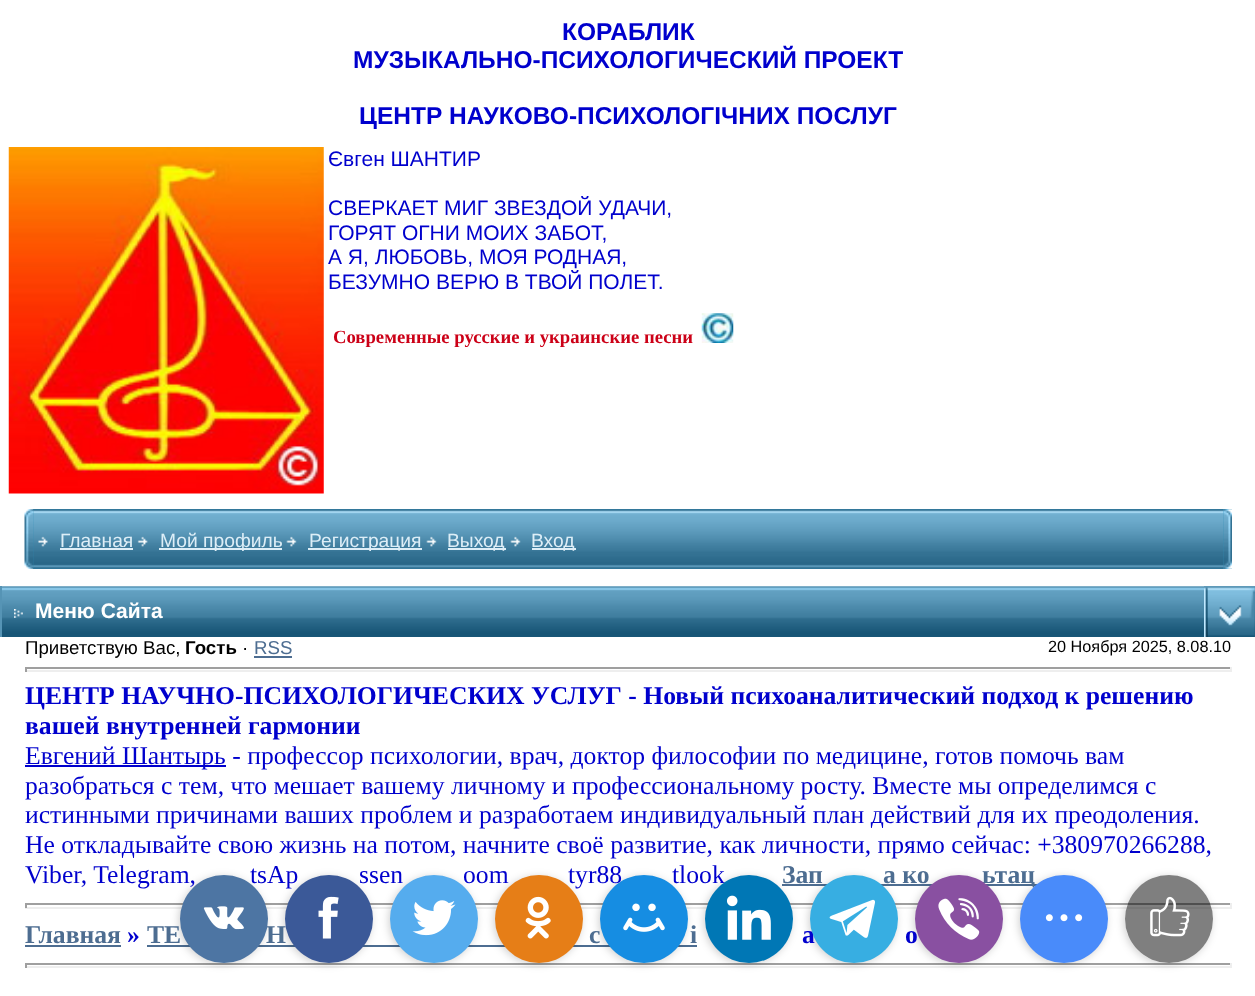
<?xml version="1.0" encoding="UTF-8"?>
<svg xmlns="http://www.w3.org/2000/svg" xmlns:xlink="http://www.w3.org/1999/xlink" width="1255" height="996">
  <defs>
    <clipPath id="clip1"><path d="M 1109 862 h 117 v 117 h -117 z m 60 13 c 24.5 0 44 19.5 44 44 c 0 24.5 -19.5 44 -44 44 c -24.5 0 -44 -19.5 -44 -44 c 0 -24.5 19.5 -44 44 -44 z" clip-rule="evenodd" /></clipPath>
  </defs>
  <rect width="100%" height="100%" fill="#ffffff" />
  <image x="8" y="147" width="316" height="347" xlink:href="image1.png" />
  <image x="701" y="313" width="33" height="30" xlink:href="image2.png" />
  <rect x="33" y="509" width="1199" height="60" fill="#318eb7" />
  <image x="33" y="509" width="1190" height="60" xlink:href="image4.png" />
  <image x="24" y="509" width="10" height="60" xlink:href="image3.png" />
  <image x="38" y="536" width="10" height="11" xlink:href="image5.png" />
  <rect x="60" y="548" width="73" height="2" fill="#ddeef7" />
  <image x="137" y="536" width="11" height="11" xlink:href="image6.png" />
  <rect x="159" y="548" width="123" height="2" fill="#ddeef7" />
  <image x="286" y="536" width="11" height="11" xlink:href="image7.png" />
  <rect x="308" y="548" width="114" height="2" fill="#ddeef7" />
  <image x="426" y="536" width="11" height="11" xlink:href="image7.png" />
  <rect x="448" y="548" width="58" height="2" fill="#ddeef7" />
  <image x="510" y="536" width="11" height="11" xlink:href="image7.png" />
  <rect x="532" y="548" width="44" height="2" fill="#ddeef7" />
  <image x="1223" y="509" width="9" height="60" xlink:href="image8.png" />
  <image x="2" y="586" width="1202" height="51" xlink:href="image9.png" />
  <rect y="586" width="2" height="51" fill="#5694b5" />
  <image x="14" y="609" width="9" height="9" xlink:href="image10.png" />
  <image x="1204" y="586" width="51" height="1" xlink:href="image11.png" />
  <image x="1204" y="586" width="51" height="51" xlink:href="image12.png" />
  <rect x="254" y="656" width="38" height="2" fill="#4d6d91" />
  <rect x="25" y="667" width="1207" height="2" fill="#9f9f9f" />
  <rect x="1230" y="667" width="2" height="5" fill="#eeeeee" />
  <rect x="25" y="670" width="1207" height="2" fill="#eeeeee" />
  <rect x="25" y="667" width="2" height="5" fill="#9f9f9f" />
  <rect x="25" y="765" width="201" height="2" fill="#0000cd" />
  <rect x="782" y="884" width="256" height="2" fill="#4d6d91" />
  <rect x="25" y="903" width="1207" height="2" fill="#9f9f9f" />
  <rect x="1230" y="903" width="2" height="5" fill="#eeeeee" />
  <rect x="25" y="907" width="1207" height="2" fill="#eeeeee" />
  <rect x="25" y="903" width="2" height="5" fill="#9f9f9f" />
  <rect x="25" y="945" width="96" height="2" fill="#4d6d91" />
  <rect x="147" y="945" width="148" height="2" fill="#4d6d91" />
  <rect x="363" y="945" width="334" height="2" fill="#4d6d91" />
  <rect x="25" y="963" width="1207" height="2" fill="#9f9f9f" />
  <rect x="1230" y="963" width="2" height="5" fill="#eeeeee" />
  <rect x="25" y="966" width="1207" height="2" fill="#eeeeee" />
  <rect x="25" y="963" width="2" height="5" fill="#9f9f9f" />
  <rect x="179" y="877" width="87" height="87" rx="43.5" fill="#000000" fill-opacity="0.2" filter="blur(4.5px)" />
  <rect x="284" y="877" width="87" height="87" rx="43.5" fill="#000000" fill-opacity="0.2" filter="blur(4.5px)" />
  <rect x="389" y="877" width="87" height="87" rx="43.5" fill="#000000" fill-opacity="0.2" filter="blur(4.5px)" />
  <rect x="494" y="877" width="87" height="87" rx="43.5" fill="#000000" fill-opacity="0.2" filter="blur(4.5px)" />
  <rect x="599" y="877" width="87" height="87" rx="43.5" fill="#000000" fill-opacity="0.2" filter="blur(4.5px)" />
  <rect x="704" y="877" width="87" height="87" rx="43.5" fill="#000000" fill-opacity="0.2" filter="blur(4.5px)" />
  <rect x="809" y="877" width="87" height="87" rx="43.5" fill="#000000" fill-opacity="0.2" filter="blur(4.5px)" />
  <rect x="914" y="877" width="87" height="87" rx="43.5" fill="#000000" fill-opacity="0.2" filter="blur(4.5px)" />
  <rect x="1019" y="877" width="87" height="87" rx="43.5" fill="#000000" fill-opacity="0.2" filter="blur(4.5px)" />
  <g clip-path="url(#clip1)">
    <rect x="1124" y="877" width="87" height="87" rx="43.5" fill="#000000" fill-opacity="0.2" filter="blur(4.5px)" />
  </g>
  <circle cx="1169" cy="919" r="44" fill="#000000" fill-opacity="0.5" />
  <image x="1150" y="896" width="40" height="41" xlink:href="image22.png" />
  <text x="562" y="40" style="font-family: Liberation Sans; font-size: 24.5px; font-weight: bold; fill: #0000cd">КОРАБЛИК</text>
  <text x="353" y="68" style="font-family: Liberation Sans; font-size: 24.5px; font-weight: bold; fill: #0000cd">МУЗЫКАЛЬНО-ПСИХОЛОГИЧЕСКИЙ ПРОЕКТ</text>
  <text x="359" y="124" style="font-family: Liberation Sans; font-size: 24.5px; font-weight: bold; fill: #0000cd">ЦЕНТР НАУКОВО-ПСИХОЛОГІЧНИХ ПОСЛУГ</text>
  <text x="328" y="166" style="font-family: Liberation Sans; font-size: 21px; fill: #0000cd">Євген ШАНТИР</text>
  <text x="328" y="215" style="font-family: Liberation Sans; font-size: 21px; fill: #0000cd">СВЕРКАЕТ МИГ ЗВЕЗДОЙ УДАЧИ,</text>
  <text x="328" y="240" style="font-family: Liberation Sans; font-size: 21px; fill: #0000cd">ГОРЯТ ОГНИ МОИХ ЗАБОТ,</text>
  <text x="328" y="264" style="font-family: Liberation Sans; font-size: 21px; fill: #0000cd">А Я, ЛЮБОВЬ, МОЯ РОДНАЯ,</text>
  <text x="328" y="289" style="font-family: Liberation Sans; font-size: 21px; fill: #0000cd">БЕЗУМНО ВЕРЮ В ТВОЙ ПОЛЕТ.</text>
  <text x="333" y="343" style="font-family: Liberation Serif; font-size: 18.7px; font-weight: bold; fill: #cc0017">Современные русские и украинские песни</text>
  <text x="60" y="547" style="font-family: Liberation Sans; font-size: 19.25px; fill: #ddeef7">Главная</text>
  <text x="160" y="547" style="font-family: Liberation Sans; font-size: 19.25px; fill: #ddeef7">Мой профиль</text>
  <text x="309" y="547" style="font-family: Liberation Sans; font-size: 19.25px; fill: #ddeef7">Регистрация</text>
  <text x="447" y="547" style="font-family: Liberation Sans; font-size: 19.25px; fill: #ddeef7">Выход</text>
  <text x="531" y="547" style="font-family: Liberation Sans; font-size: 19.25px; fill: #ddeef7">Вход</text>
  <text x="35" y="618" style="font-family: Liberation Sans; font-size: 21px; font-weight: bold; fill: #ffffff">Меню Сайта</text>
  <text x="25" y="654" style="font-family: Liberation Sans; font-size: 18.7px; fill: #000000">Приветствую Вас,</text>
  <text x="185" y="654" style="font-family: Liberation Sans; font-size: 18.7px; font-weight: bold; fill: #000000">Гость</text>
  <text x="242" y="654" style="font-family: Liberation Sans; font-size: 18.7px; fill: #000000">·</text>
  <text x="254" y="654" style="font-family: Liberation Sans; font-size: 18.7px; fill: #4d6d91">RSS</text>
  <text x="1048" y="652" style="font-family: Liberation Sans; font-size: 16.25px; fill: #000000">20 Ноября 2025, 8.08.10</text>
  <text x="25" y="704" style="font-family: Liberation Serif; font-size: 25.65px; font-weight: bold; fill: #0000cd">ЦЕНТР НАУЧНО-ПСИХОЛОГИЧЕСКИХ УСЛУГ - Новый психоаналитический подход к решению</text>
  <text x="25" y="734" style="font-family: Liberation Serif; font-size: 25.65px; font-weight: bold; fill: #0000cd">вашей внутренней гармонии</text>
  <text x="25" y="764" style="font-family: Liberation Serif; font-size: 25.65px; fill: #0000cd">Евгений Шантырь - профессор психологии, врач, доктор философии по медицине, готов помочь вам</text>
  <text x="25" y="794" style="font-family: Liberation Serif; font-size: 25.65px; fill: #0000cd">разобраться с тем, что мешает вашему личному и профессиональному росту. Вместе мы определимся с</text>
  <text x="25" y="823" style="font-family: Liberation Serif; font-size: 25.65px; fill: #0000cd">истинными причинами ваших проблем и разработаем индивидуальный план действий для их преодоления.</text>
  <text x="25" y="853" style="font-family: Liberation Serif; font-size: 25.65px; fill: #0000cd">Не откладывайте свою жизнь на потом, начните своё развитие, как личности, прямо сейчас: +380970266288,</text>
  <text x="25" y="883" style="font-family: Liberation Serif; font-size: 25.65px; fill: #0000cd">Viber, Telegram,</text>
  <text x="250" y="883" style="font-family: Liberation Serif; font-size: 25.65px; fill: #0000cd">tsAp</text>
  <text x="359" y="883" style="font-family: Liberation Serif; font-size: 25.65px; fill: #0000cd">ssen</text>
  <text x="463" y="883" style="font-family: Liberation Serif; font-size: 25.65px; fill: #0000cd">oom</text>
  <text x="568" y="883" style="font-family: Liberation Serif; font-size: 25.65px; fill: #0000cd">tyr88</text>
  <text x="672" y="883" style="font-family: Liberation Serif; font-size: 25.65px; fill: #0000cd">tlook</text>
  <text x="782" y="883" style="font-family: Liberation Serif; font-size: 25.65px; font-weight: bold; fill: #4d6d91">Зап</text>
  <text x="883" y="883" style="font-family: Liberation Serif; font-size: 25.65px; font-weight: bold; fill: #4d6d91">а ко</text>
  <text x="982" y="883" style="font-family: Liberation Serif; font-size: 25.65px; font-weight: bold; fill: #4d6d91">ьтац</text>
  <text x="25" y="943" style="font-family: Liberation Serif; font-size: 25.65px; font-weight: bold; fill: #4d6d91">Главная</text>
  <text x="127" y="943" style="font-family: Liberation Serif; font-size: 25.65px; font-weight: bold; fill: #0000cd">»</text>
  <text x="147" y="943" style="font-family: Liberation Serif; font-size: 25.65px; font-weight: bold; fill: #4d6d91">ТЕ</text>
  <text x="266" y="943" style="font-family: Liberation Serif; font-size: 25.65px; font-weight: bold; fill: #4d6d91">Н</text>
  <text x="589" y="943" style="font-family: Liberation Serif; font-size: 25.65px; font-weight: bold; fill: #4d6d91">с</text>
  <text x="690" y="943" style="font-family: Liberation Serif; font-size: 25.65px; font-weight: bold; fill: #4d6d91">і</text>
  <text x="802" y="943" style="font-family: Liberation Serif; font-size: 25.65px; font-weight: bold; fill: #0000cd">а</text>
  <text x="905" y="943" style="font-family: Liberation Serif; font-size: 25.65px; font-weight: bold; fill: #0000cd">о</text>
  <circle cx="224" cy="919" r="44" fill="#4d75a3" />
  <image x="203" y="906" width="41" height="24" xlink:href="image13.png" />
  <circle cx="329" cy="919" r="44" fill="#3b5998" />
  <image x="318" y="896" width="21" height="43" xlink:href="image14.png" />
  <circle cx="434" cy="919" r="44" fill="#55acee" />
  <image x="412" y="900" width="44" height="36" xlink:href="image15.png" />
  <circle cx="539" cy="919" r="44" fill="#e67e17" />
  <image x="525" y="896" width="26" height="43" xlink:href="image16.png" />
  <circle cx="644" cy="919" r="44" fill="#168de2" />
  <image x="623" y="903" width="42" height="29" xlink:href="image17.png" />
  <circle cx="749" cy="919" r="44" fill="#0077b5" />
  <image x="726" y="895" width="45" height="45" xlink:href="image18.png" />
  <circle cx="854" cy="919" r="44" fill="#37aee2" />
  <image x="829" y="899" width="46" height="39" xlink:href="image19.png" />
  <circle cx="959" cy="919" r="44" fill="#8950a1" />
  <image x="938" y="898" width="42" height="42" xlink:href="image20.png" />
  <circle cx="1064" cy="919" r="44" fill="#498bfa" />
  <image x="1045" y="914" width="38" height="8" xlink:href="image21.png" />
</svg>
